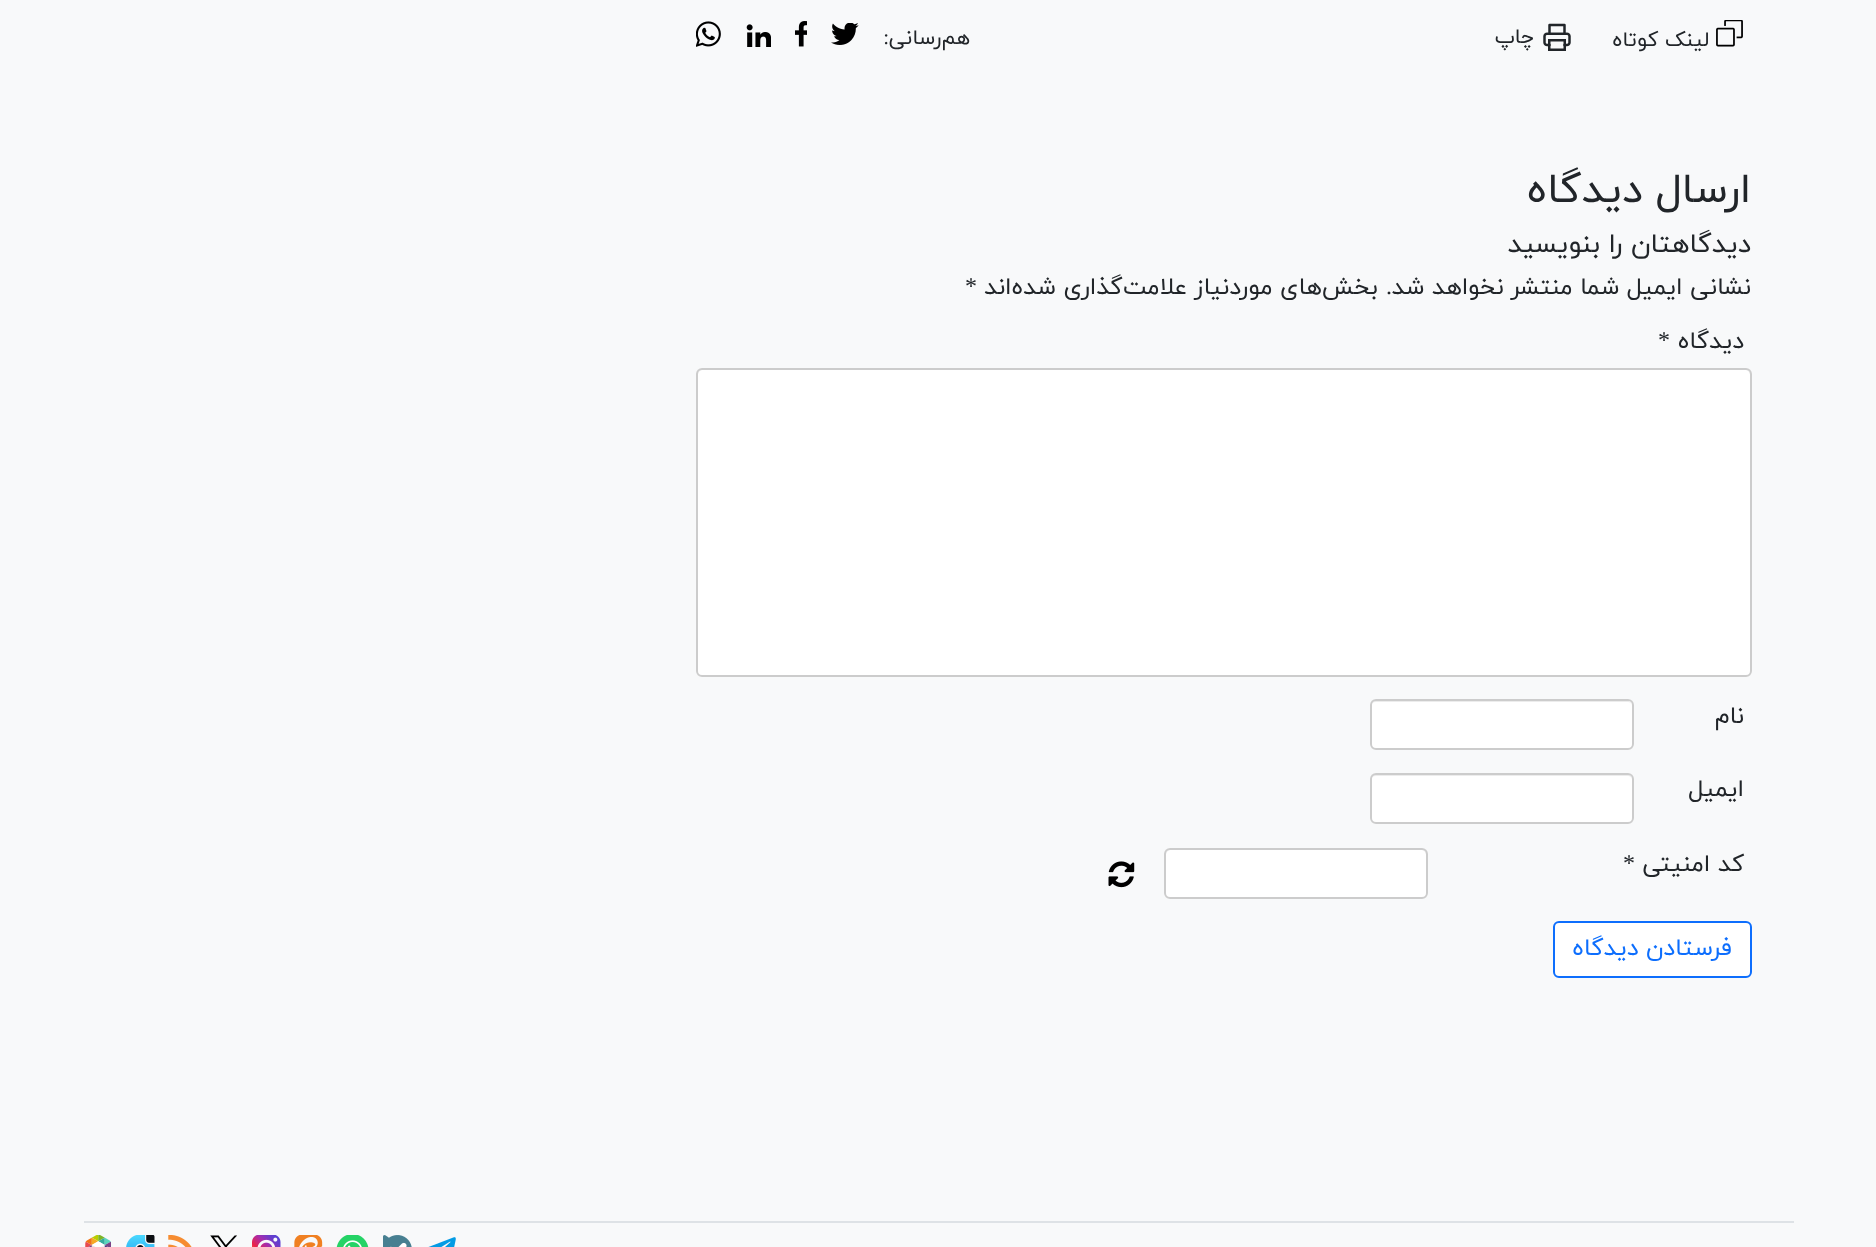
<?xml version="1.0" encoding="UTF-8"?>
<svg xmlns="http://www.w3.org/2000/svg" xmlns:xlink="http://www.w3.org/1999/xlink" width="1876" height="1247">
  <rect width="100%" height="100%" fill="#f8f9fa" />
  <image x="1716" y="20" width="27" height="27" xlink:href="image1.png" />
  <image x="1543" y="23" width="28" height="28" xlink:href="image2.png" />
  <image x="831" y="23" width="28" height="22" xlink:href="image3.png" />
  <image x="795" y="21" width="12" height="26" xlink:href="image4.png" />
  <image x="746" y="24" width="25" height="23" xlink:href="image5.png" />
  <image x="696" y="21" width="25" height="26" xlink:href="image6.png" />
  <rect x="696" y="368" width="1056" height="309" rx="6" fill="#ffffff" />
  <path d="M 702 370 h 1044 c 2 0 4 3 4 5 v 298 c 1 -1 1 -2 1 -3 v -296 c 0 -3 -2 -5 -5 -5 h -1043 c -3 0 -5 2 -5 5 v 1 c 0 -2 2 -5 4 -5 z" fill="#ececec" />
  <rect x="697" y="369" width="1054" height="307" rx="5" fill="none" stroke="#cccccc" stroke-width="2" />
  <rect x="1370" y="699" width="264" height="51" rx="6" fill="#ffffff" />
  <path d="M 1376 702 h 252 c 2 0 4 2 4 4 c 0 -3 -2 -5 -5 -5 h -251 c -3 0 -5 2 -5 5 c 0 -2 2 -4 5 -4 z" fill="#ececec" />
  <rect x="1371" y="700" width="262" height="49" rx="5" fill="none" stroke="#cccccc" stroke-width="2" />
  <rect x="1370" y="773" width="264" height="51" rx="6" fill="#ffffff" />
  <path d="M 1376 776 h 252 c 2 0 4 2 4 4 c 0 -3 -2 -6 -5 -6 h -251 c -3 0 -5 3 -5 6 c 0 -2 2 -4 5 -4 z" fill="#ececec" />
  <rect x="1371" y="774" width="262" height="49" rx="5" fill="none" stroke="#cccccc" stroke-width="2" />
  <rect x="1164" y="848" width="264" height="51" rx="6" fill="#ffffff" />
  <path d="M 1170 850 h 252 c 2 0 4 3 4 5 v 40 c 1 -1 1 -2 1 -3 v -38 c 0 -3 -2 -5 -5 -5 h -251 c -3 0 -5 2 -5 5 v 1 c 0 -2 2 -5 4 -5 z" fill="#ececec" />
  <rect x="1165" y="849" width="262" height="49" rx="5" fill="none" stroke="#cccccc" stroke-width="2" />
  <image x="1108" y="861" width="27" height="27" xlink:href="image7.png" />
  <rect x="1554" y="922" width="197" height="55" rx="5" fill="#ffffff" stroke="#0d6efd" stroke-width="2" />
  <rect x="84" y="1221" width="1710" height="2" fill="#dee2e6" />
  <image x="428" y="1237" width="28" height="10" xlink:href="image8.png" />
  <image x="383" y="1235" width="29" height="12" xlink:href="image9.png" />
  <image x="336" y="1235" width="33" height="12" xlink:href="image10.png" />
  <image x="294" y="1235" width="29" height="12" xlink:href="image11.png" />
  <image x="252" y="1235" width="29" height="12" xlink:href="image12.png" />
  <image x="210" y="1235" width="27" height="12" xlink:href="image13.png" />
  <image x="168" y="1235" width="24" height="12" xlink:href="image14.png" />
  <image x="126" y="1235" width="29" height="12" xlink:href="image15.png" />
  <image x="85" y="1235" width="26" height="12" xlink:href="image16.png" />
  <text x="1709" y="46" style="font-family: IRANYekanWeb; font-size: 21px; direction: rtl; fill: #212529">لینک کوتاه</text>
  <text x="1534" y="43" style="font-family: IRANYekanWeb; font-size: 21px; direction: rtl; fill: #212529">چاپ</text>
  <text x="970" y="44" style="font-family: IRANYekanWeb; font-size: 21px; direction: rtl; fill: #212529">هم‌رسانی</text>
  <text x="889" y="44" style="font-family: Liberation Serif; font-size: 21px; direction: rtl; fill: #212529">:</text>
  <text x="1751" y="202" style="font-family: IRANYekanWeb; font-size: 42px; direction: rtl; fill: #212529">ارسال دیدگاه</text>
  <text x="1751" y="252" style="font-family: IRANYekanWeb; font-size: 27px; direction: rtl; fill: #212529">دیدگاهتان را بنویسید</text>
  <text x="1751" y="294" style="font-family: IRANYekanWeb; font-size: 24px; direction: rtl; fill: #212529">نشانی ایمیل شما منتشر نخواهد شد</text>
  <text x="1378" y="294" style="font-family: IRANYekanWeb; font-size: 24px; direction: rtl; fill: #212529">بخش‌های موردنیاز علامت‌گذاری شده‌اند</text>
  <text x="977" y="294" style="font-family: Liberation Serif; font-size: 24px; direction: rtl; fill: #212529">*</text>
  <text x="1392" y="294" style="font-family: Liberation Serif; font-size: 24px; direction: rtl; fill: #212529">.</text>
  <text x="1744" y="348" style="font-family: IRANYekanWeb; font-size: 24px; direction: rtl; fill: #212529">دیدگاه</text>
  <text x="1658" y="348" style="font-family: Liberation Serif; font-size: 24px; fill: #212529">*</text>
  <text x="1744" y="723" style="font-family: IRANYekanWeb; font-size: 24px; direction: rtl; fill: #212529">نام</text>
  <text x="1744" y="796" style="font-family: IRANYekanWeb; font-size: 24px; direction: rtl; fill: #212529">ایمیل</text>
  <text x="1744" y="871" style="font-family: IRANYekanWeb; font-size: 24px; direction: rtl; fill: #212529">کد امنیتی</text>
  <text x="1623" y="871" style="font-family: Liberation Serif; font-size: 24px; fill: #212529">*</text>
  <text x="1732" y="955" style="font-family: IRANYekanWeb; font-size: 24px; direction: rtl; fill: #0d6efd">فرستادن دیدگاه</text>
</svg>
